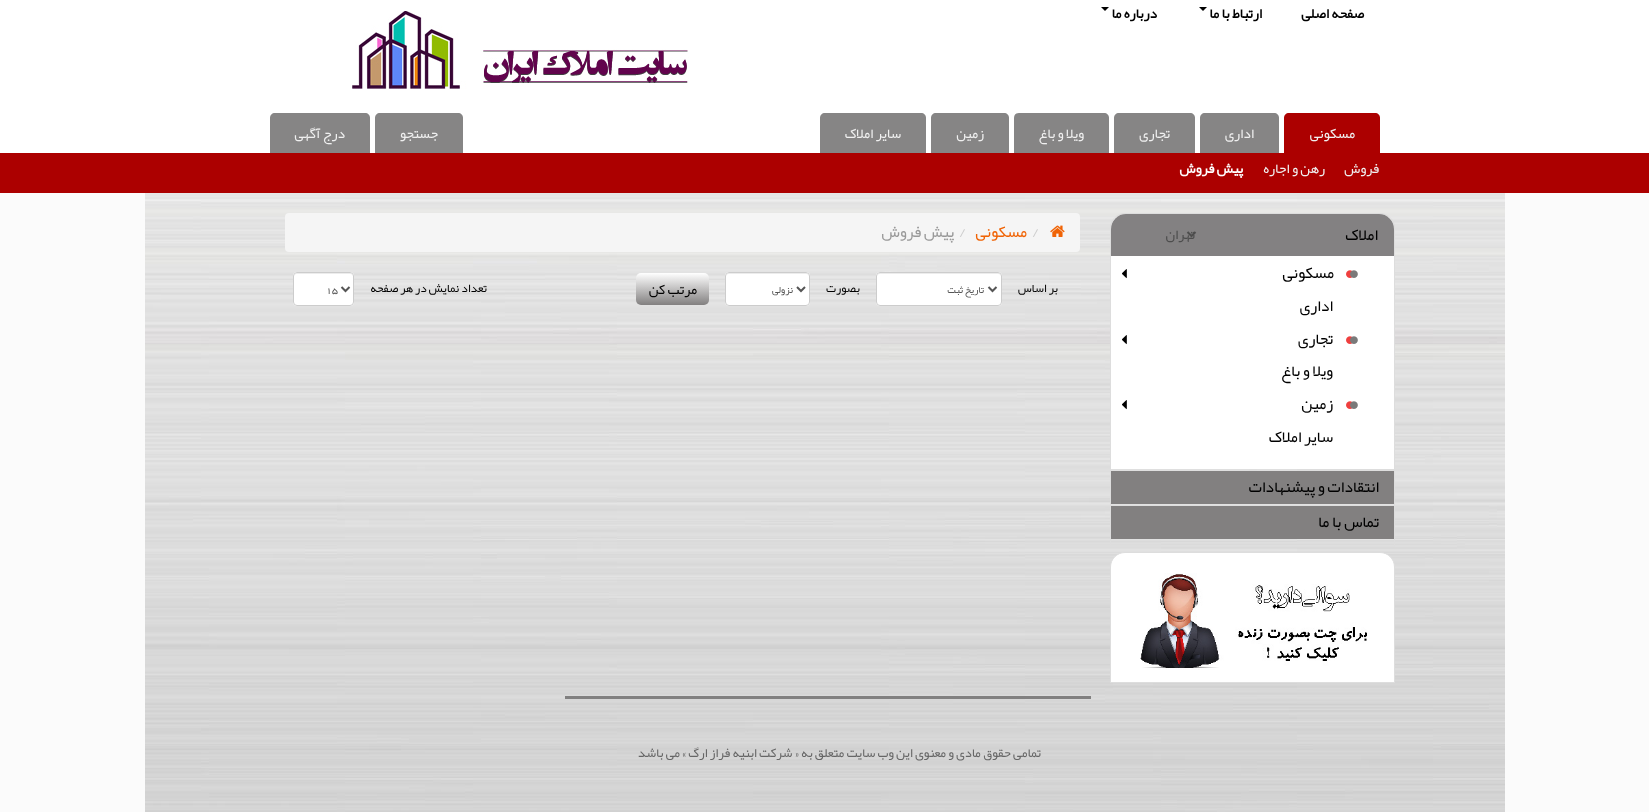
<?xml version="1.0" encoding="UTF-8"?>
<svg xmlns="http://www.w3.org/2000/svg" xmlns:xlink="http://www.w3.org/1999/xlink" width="1649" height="812">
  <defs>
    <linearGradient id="g1" gradientUnits="userSpaceOnUse" x1="673" y1="273" x2="673" y2="305"><stop offset="0" stop-color="#ffffff" /><stop offset="1" stop-color="#828080" /></linearGradient>
  </defs>
  <rect width="100%" height="100%" fill="#fbfbfb" />
  <image x="145" y="193" width="1360" height="619" xlink:href="image1.png" />
  <rect width="1649" height="153" fill="#ffffff" />
  <image x="352" y="11" width="337" height="78" xlink:href="image2.png" />
  <path d="M 1199 7 h 8 l -4 4 z" fill="#000000" />
  <path d="M 1101 7 h 8 l -4 4 z" fill="#000000" />
  <rect y="153" width="1649" height="40" fill="#ac0000" />
  <path d="M 1289 113 h 86 c 3 0 5 2 5 5 v 35 h -96 v -35 c 0 -3 2 -5 5 -5 z" fill="#ac0000" />
  <path d="M 1119 113 h 71 c 3 0 5 2 5 5 v 35 h -81 v -35 c 0 -3 2 -5 5 -5 z" fill="#868585" />
  <path d="M 1019 113 h 85 c 3 0 5 2 5 5 v 35 h -95 v -35 c 0 -3 2 -5 5 -5 z" fill="#868585" />
  <path d="M 825 113 h 96 c 3 0 5 2 5 5 v 35 h -106 v -35 c 0 -3 2 -5 5 -5 z" fill="#868585" />
  <path d="M 1205 113 h 69 c 3 0 5 2 5 5 v 35 h -79 v -35 c 0 -3 2 -5 5 -5 z" fill="#868585" />
  <path d="M 936 113 h 68 c 3 0 5 2 5 5 v 35 h -78 v -35 c 0 -3 2 -5 5 -5 z" fill="#868585" />
  <path d="M 380 113 h 78 c 3 0 5 2 5 5 v 35 h -88 v -35 c 0 -3 2 -5 5 -5 z" fill="#868585" />
  <path d="M 275 113 h 90 c 3 0 5 2 5 5 v 35 h -100 v -35 c 0 -3 2 -5 5 -5 z" fill="#868585" />
  <path d="M 1125 213.5 h 255 c 8 0 14.5 6.5 14.5 14.5 v 318.5 h -284 v -318.5 c 0 -8 6.5 -14.5 14.5 -14.5 z" fill="none" stroke="#dddddd" />
  <path d="M 1126 214 h 253 c 8.5 0 15 6.5 15 15 v 240 h -283 v -240 c 0 -8.5 6.5 -15 15 -15 z" fill="#ffffff" />
  <image x="1111" y="214" width="283" height="42" xlink:href="image3.png" />
  <image x="1122" y="269" width="5" height="10" xlink:href="image4.png" />
  <image x="1346" y="270" width="12" height="8" xlink:href="image5.png" />
  <image x="1122" y="335" width="5" height="10" xlink:href="image4.png" />
  <image x="1346" y="336" width="12" height="8" xlink:href="image5.png" />
  <image x="1122" y="400" width="5" height="10" xlink:href="image4.png" />
  <image x="1346" y="401" width="12" height="8" xlink:href="image5.png" />
  <rect x="1111" y="471" width="283" height="33" fill="#828080" />
  <rect x="1111" y="506" width="283" height="33" fill="#828080" />
  <path d="M 1187.5 232 l 4 4 l 4 -4" fill="none" stroke="#4d4d4d" stroke-width="2" />
  <path d="M 1125 552.5 h 255 c 8 0 14.5 6.5 14.5 14.5 v 115.5 h -284 v -115.5 c 0 -8 6.5 -14.5 14.5 -14.5 z" fill="#ffffff" stroke="#dddddd" />
  <image x="1140" y="573" width="227" height="97" xlink:href="image6.png" />
  <rect x="285" y="213" width="795" height="39" rx="4" fill="#f5f5f5" />
  <image x="1050" y="225" width="15" height="12" xlink:href="image7.png" />
  <rect x="876" y="272" width="126" height="34" rx="4" fill="#ffffff" />
  <path d="M 880 274 h 118 c 2 0 3 1 3 3 c 0 -2 -1 -4 -3 -4 h -98 c -1 0 -23 -5 -23 4 c 0 -2 1 -3 3 -3 z" fill="#ececec" />
  <rect x="876.5" y="272.5" width="125" height="33" rx="3.5" fill="none" stroke="#cccccc" />
  <path d="M 988.5 287 l 4 4 l 4 -4" fill="none" stroke="#555555" stroke-width="2" />
  <rect x="725" y="272" width="85" height="34" rx="4" fill="#ffffff" />
  <path d="M 729 274 h 77 c 2 0 3 1 3 3 c 0 -7 -12 -4 -16 -4 h -51 c -4 0 -16 -3 -16 4 c 0 -2 1 -3 3 -3 z" fill="#ececec" />
  <rect x="725.5" y="272.5" width="84" height="33" rx="3.5" fill="none" stroke="#cccccc" />
  <path d="M 797 287 l 4 4 l 4 -4" fill="none" stroke="#555555" stroke-width="2" />
  <rect x="636" y="273" width="73" height="32" rx="5" fill="url(#g1)" />
  <rect x="293" y="272" width="61" height="34" rx="4" fill="#ffffff" />
  <path d="M 297 274 h 53 c 2 0 3 1 3 3 c 0 -6 -7 -4 -12 -4 h -35 c -5 0 -12 -2 -12 4 c 0 -2 1 -3 3 -3 z" fill="#ececec" />
  <rect x="293.5" y="272.5" width="60" height="33" rx="3.5" fill="none" stroke="#cccccc" />
  <path d="M 341.5 287 l 4 4 l 4 -4" fill="none" stroke="#555555" stroke-width="2" />
  <rect x="565" y="696" width="526" height="3" fill="#818080" />
  <text x="1364" y="18" style="font-family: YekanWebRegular; font-size: 14px; font-weight: bold; direction: rtl; fill: #000000">صفحه اصلی</text>
  <text x="1262" y="18" style="font-family: YekanWebRegular; font-size: 14px; font-weight: bold; direction: rtl; fill: #000000">ارتباط با ما</text>
  <text x="1157" y="18" style="font-family: YekanWebRegular; font-size: 14px; font-weight: bold; direction: rtl; fill: #000000">درباره ما</text>
  <text x="1355" y="138" style="font-family: YekanWebRegular; font-size: 14px; direction: rtl; fill: #f0f0f0">مسکونی</text>
  <text x="1379" y="173" style="font-family: YekanWebRegular; font-size: 14px; direction: rtl; fill: #f0f0f0">فروش</text>
  <text x="1325" y="173" style="font-family: YekanWebRegular; font-size: 14px; direction: rtl; fill: #f0f0f0">رهن و اجاره</text>
  <text x="1243" y="173" style="font-family: YekanWebRegular; font-size: 14px; font-weight: bold; direction: rtl; fill: #ffffff">پیش فروش</text>
  <text x="1170" y="138" style="font-family: YekanWebRegular; font-size: 14px; direction: rtl; fill: #f0f0f0">تجاری</text>
  <text x="1084" y="138" style="font-family: YekanWebRegular; font-size: 14px; direction: rtl; fill: #f0f0f0">ویلا و باغ</text>
  <text x="901" y="138" style="font-family: YekanWebRegular; font-size: 14px; direction: rtl; fill: #f0f0f0">سایر املاک</text>
  <text x="1254" y="138" style="font-family: YekanWebRegular; font-size: 14px; direction: rtl; fill: #f0f0f0">اداری</text>
  <text x="984" y="138" style="font-family: YekanWebRegular; font-size: 14px; direction: rtl; fill: #f0f0f0">زمین</text>
  <text x="438" y="138" style="font-family: YekanWebRegular; font-size: 14px; direction: rtl; fill: #f0f0f0">جستجو</text>
  <text x="345" y="138" style="font-family: YekanWebRegular; font-size: 14px; direction: rtl; fill: #f0f0f0">درج آگهی</text>
  <text x="1378" y="240" style="font-family: YekanWebRegular; font-size: 16px; direction: rtl; fill: #000000">املاک</text>
  <text x="1334" y="278" style="font-family: YekanWebRegular; font-size: 16px; direction: rtl; fill: #000000">مسکونی</text>
  <text x="1333" y="311" style="font-family: YekanWebRegular; font-size: 16px; direction: rtl; fill: #000000">اداری</text>
  <text x="1333" y="344" style="font-family: YekanWebRegular; font-size: 16px; direction: rtl; fill: #000000">تجاری</text>
  <text x="1333" y="376" style="font-family: YekanWebRegular; font-size: 16px; direction: rtl; fill: #000000">ویلا و باغ</text>
  <text x="1333" y="409" style="font-family: YekanWebRegular; font-size: 16px; direction: rtl; fill: #000000">زمین</text>
  <text x="1333" y="442" style="font-family: YekanWebRegular; font-size: 16px; direction: rtl; fill: #000000">سایر املاک</text>
  <text x="1379" y="492" style="font-family: YekanWebRegular; font-size: 16px; direction: rtl; fill: #000000">انتقادات و پیشنهادات</text>
  <text x="1379" y="527" style="font-family: YekanWebRegular; font-size: 16px; direction: rtl; fill: #000000">تماس با ما</text>
  <text x="1195" y="239" style="font-family: YekanWebRegular; font-size: 14px; direction: rtl; fill: #4d4d4d">تهران</text>
  <text x="1032" y="237" style="font-family: YekanWebRegular; font-size: 16px; fill: #cccccc">/</text>
  <text x="1027" y="237" style="font-family: YekanWebRegular; font-size: 16px; direction: rtl; fill: #f06305">مسکونی</text>
  <text x="959" y="237" style="font-family: YekanWebRegular; font-size: 16px; fill: #cccccc">/</text>
  <text x="954" y="237" style="font-family: YekanWebRegular; font-size: 16px; direction: rtl; fill: #999999">پیش فروش</text>
  <text x="1058" y="292" style="font-family: YekanWebRegular; font-size: 12px; direction: rtl; fill: #000000">بر اساس</text>
  <text x="984" y="293" style="font-family: YekanWebRegular; font-size: 10px; direction: rtl; fill: #555555">تاریخ ثبت</text>
  <text x="860" y="292" style="font-family: YekanWebRegular; font-size: 12px; direction: rtl; fill: #000000">بصورت</text>
  <text x="793" y="293" style="font-family: YekanWebRegular; font-size: 10px; direction: rtl; fill: #555555">نزولی</text>
  <text x="697" y="294" style="font-family: YekanWebRegular; font-size: 14px; direction: rtl; fill: #000000">مرتب کن</text>
  <text x="487" y="292" style="font-family: YekanWebRegular; font-size: 12px; direction: rtl; fill: #000000">تعداد نمایش در هر صفحه</text>
  <text x="326" y="293" style="font-family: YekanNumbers; font-size: 10px; fill: #555555">15</text>
  <text x="1041" y="757" style="font-family: YekanWebRegular; font-size: 13px; direction: rtl; fill: #666666">تمامی حقوق مادی و معنوی این وب سایت متعلق به</text>
  <text x="799" y="757" style="font-family: YekanWebRegular; font-size: 13px; direction: rtl; fill: #666666">« شرکت ابنیه فراز ارگ »</text>
  <text x="680" y="757" style="font-family: YekanWebRegular; font-size: 13px; direction: rtl; fill: #666666">می باشد</text>
</svg>
